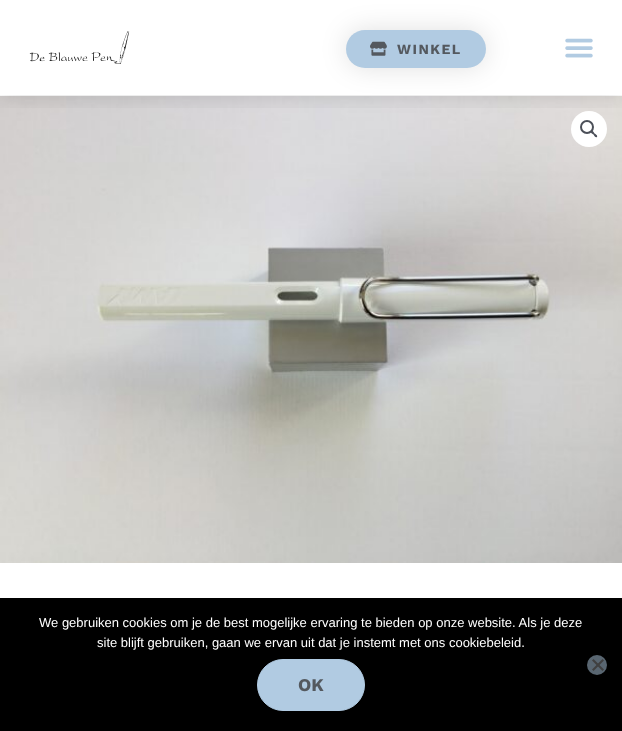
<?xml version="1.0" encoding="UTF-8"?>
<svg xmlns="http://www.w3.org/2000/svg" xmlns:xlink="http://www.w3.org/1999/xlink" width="622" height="731">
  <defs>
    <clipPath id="clip1"><rect x="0" y="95" width="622" height="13" /></clipPath>
  </defs>
  <rect width="100%" height="100%" fill="#ffffff" />
  <image x="0" y="96" width="622" height="467" xlink:href="image4.png" />
  <circle cx="589" cy="129" r="18" fill="#ffffff" />
  <circle cx="587" cy="127" r="6" fill="none" stroke="#4b4f58" stroke-width="2" />
  <path d="M 591 131 c 1.5 -1 3 1.5 3.5 2.5 c 1 0.5 3.5 2 2.5 3.5 c -1.5 1 -3 -1.5 -3.5 -2.5 c -1 -0.5 -3.5 -2 -2.5 -3.5 z" fill="#4b4f58" />
  <g clip-path="url(#clip1)">
    <rect width="622" height="95" fill="#000000" fill-opacity="0.15" filter="blur(12px)" />
  </g>
  <image x="29" y="31" width="101" height="33" xlink:href="image1.png" />
  <rect x="346" y="30" width="140" height="38" rx="19" fill="#000000" fill-opacity="0.12" filter="blur(13.5px)" />
  <rect x="346" y="30" width="140" height="38" rx="19" fill="#b1cbe2" />
  <image x="370" y="41" width="17" height="15" xlink:href="image2.png" />
  <image x="565" y="38" width="28" height="20" xlink:href="image3.png" />
  <rect y="598" width="622" height="133" fill="#000000" />
  <circle cx="597" cy="665" r="10" fill="#596671" />
  <path d="M 602.5 659 l 1.5 1.5 l -10.5 10.5 l -1.5 -1.5 z" fill="#404040" />
  <path d="M 592 660.5 l 1.5 -1.5 l 10.5 10.5 l -1.5 1.5 z" fill="#404040" />
  <rect x="257.5" y="659.5" width="107" height="51" rx="25.5" fill="#b1cbe2" stroke="#b1cbe2" />
  <text x="397" y="54" style="font-family: Work Sans; font-size: 14px; font-weight: bold; letter-spacing: 1.5px; fill: #54595f">WINKEL</text>
  <text x="39" y="627" style="font-family: Liberation Sans; font-size: 13px; fill: #ffffff">We gebruiken cookies om je de best mogelijke ervaring te bieden op onze website. Als je deze</text>
  <text x="97" y="647" style="font-family: Liberation Sans; font-size: 13px; fill: #ffffff">site blijft gebruiken, gaan we ervan uit dat je instemt met ons cookiebeleid.</text>
  <text x="298" y="691" style="font-family: Work Sans; font-size: 18px; font-weight: bold; fill: #54595f">OK</text>
</svg>
